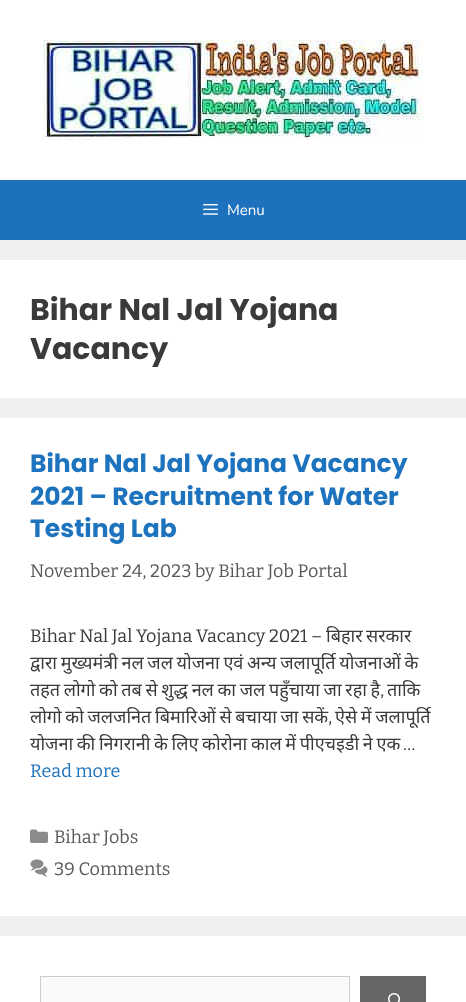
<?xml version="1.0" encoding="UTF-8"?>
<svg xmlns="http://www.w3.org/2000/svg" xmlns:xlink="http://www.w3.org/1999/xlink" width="466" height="1002">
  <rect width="100%" height="100%" fill="#efefef" />
  <rect width="466" height="180" fill="#ffffff" />
  <image x="43" y="40" width="380" height="100" xlink:href="image1.png" />
  <rect y="180" width="466" height="60" fill="#1e72bd" />
  <image x="203" y="204" width="15" height="11" xlink:href="image2.png" />
  <rect y="260" width="466" height="138" fill="#ffffff" />
  <rect y="418" width="466" height="498" fill="#ffffff" />
  <image x="30" y="829" width="18" height="14" xlink:href="image3.png" />
  <image x="30" y="859" width="18" height="18" xlink:href="image4.png" />
  <rect y="936" width="466" height="66" fill="#ffffff" />
  <rect x="40.5" y="976.5" width="309" height="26" fill="#fafafa" stroke="#cccccc" />
  <rect x="360" y="976" width="66" height="26" fill="#666666" />
  <image x="388" y="993" width="13" height="9" xlink:href="image5.png" />
  <text x="227" y="215" style="font-family: Nunito; font-size: 15px; fill: #ffffff">Menu</text>
  <text x="30" y="320" style="font-family: Poppins; font-size: 30px; font-weight: bold; fill: #3a3a3a">Bihar Nal Jal Yojana</text>
  <text x="30" y="359" style="font-family: Poppins; font-size: 30px; font-weight: bold; fill: #3a3a3a">Vacancy</text>
  <text x="30" y="472" style="font-family: Poppins; font-size: 25px; font-weight: bold; fill: #1e73be">Bihar Nal Jal Yojana Vacancy</text>
  <text x="30" y="505" style="font-family: Poppins; font-size: 25px; font-weight: bold; fill: #1e73be">2021 – Recruitment for Water</text>
  <text x="30" y="537" style="font-family: Poppins; font-size: 25px; font-weight: bold; fill: #1e73be">Testing Lab</text>
  <text x="30" y="577" style="font-family: Bitter; font-size: 18px; fill: #595959">November 24, 2023 by Bihar Job Portal</text>
  <text x="30" y="642" style="font-family: Bitter; font-size: 18px; fill: #3a3a3a">Bihar Nal Jal Yojana Vacancy 2021 –</text>
  <text x="326" y="642" style="font-family: Noto Sans; font-size: 18px; fill: #3a3a3a">बिहार</text>
  <text x="366" y="642" style="font-family: Noto Sans; font-size: 18px; fill: #3a3a3a">सरकार</text>
  <text x="30" y="669" word-spacing="-1" style="font-family: Noto Sans; font-size: 18px; fill: #3a3a3a">द्वारा मुख्यमंत्री नल जल योजना एवं अन्य जलापूर्ति योजनाओं के</text>
  <text x="30" y="696" word-spacing="-1" style="font-family: Noto Sans; font-size: 18px; fill: #3a3a3a">तहत लोगो को तब से शुद्ध नल का जल पहुँचाया जा रहा है</text>
  <text x="380" y="696" style="font-family: Bitter; font-size: 18px; fill: #3a3a3a">,</text>
  <text x="387" y="696" style="font-family: Noto Sans; font-size: 18px; fill: #3a3a3a">ताकि</text>
  <text x="30" y="723" word-spacing="-1" style="font-family: Noto Sans; font-size: 18px; fill: #3a3a3a">लोगो को जलजनित बिमारिओं से बचाया जा सकें</text>
  <text x="328" y="723" style="font-family: Bitter; font-size: 18px; fill: #3a3a3a">,</text>
  <text x="335" y="723" word-spacing="-1" style="font-family: Noto Sans; font-size: 18px; fill: #3a3a3a">ऐसे में जलापूर्ति</text>
  <text x="30" y="750" word-spacing="-1" style="font-family: Noto Sans; font-size: 18px; fill: #3a3a3a">योजना की निगरानी के लिए कोरोना काल में पीएचइडी ने एक</text>
  <text x="403" y="750" style="font-family: Bitter; font-size: 18px; fill: #3a3a3a">…</text>
  <text x="30" y="777" style="font-family: Bitter; font-size: 18px; fill: #1e73be">Read more</text>
  <text x="54" y="843" style="font-family: Bitter; font-size: 18px; fill: #595959">Bihar Jobs</text>
  <text x="54" y="875" style="font-family: Bitter; font-size: 18px; fill: #595959">39 Comments</text>
</svg>
